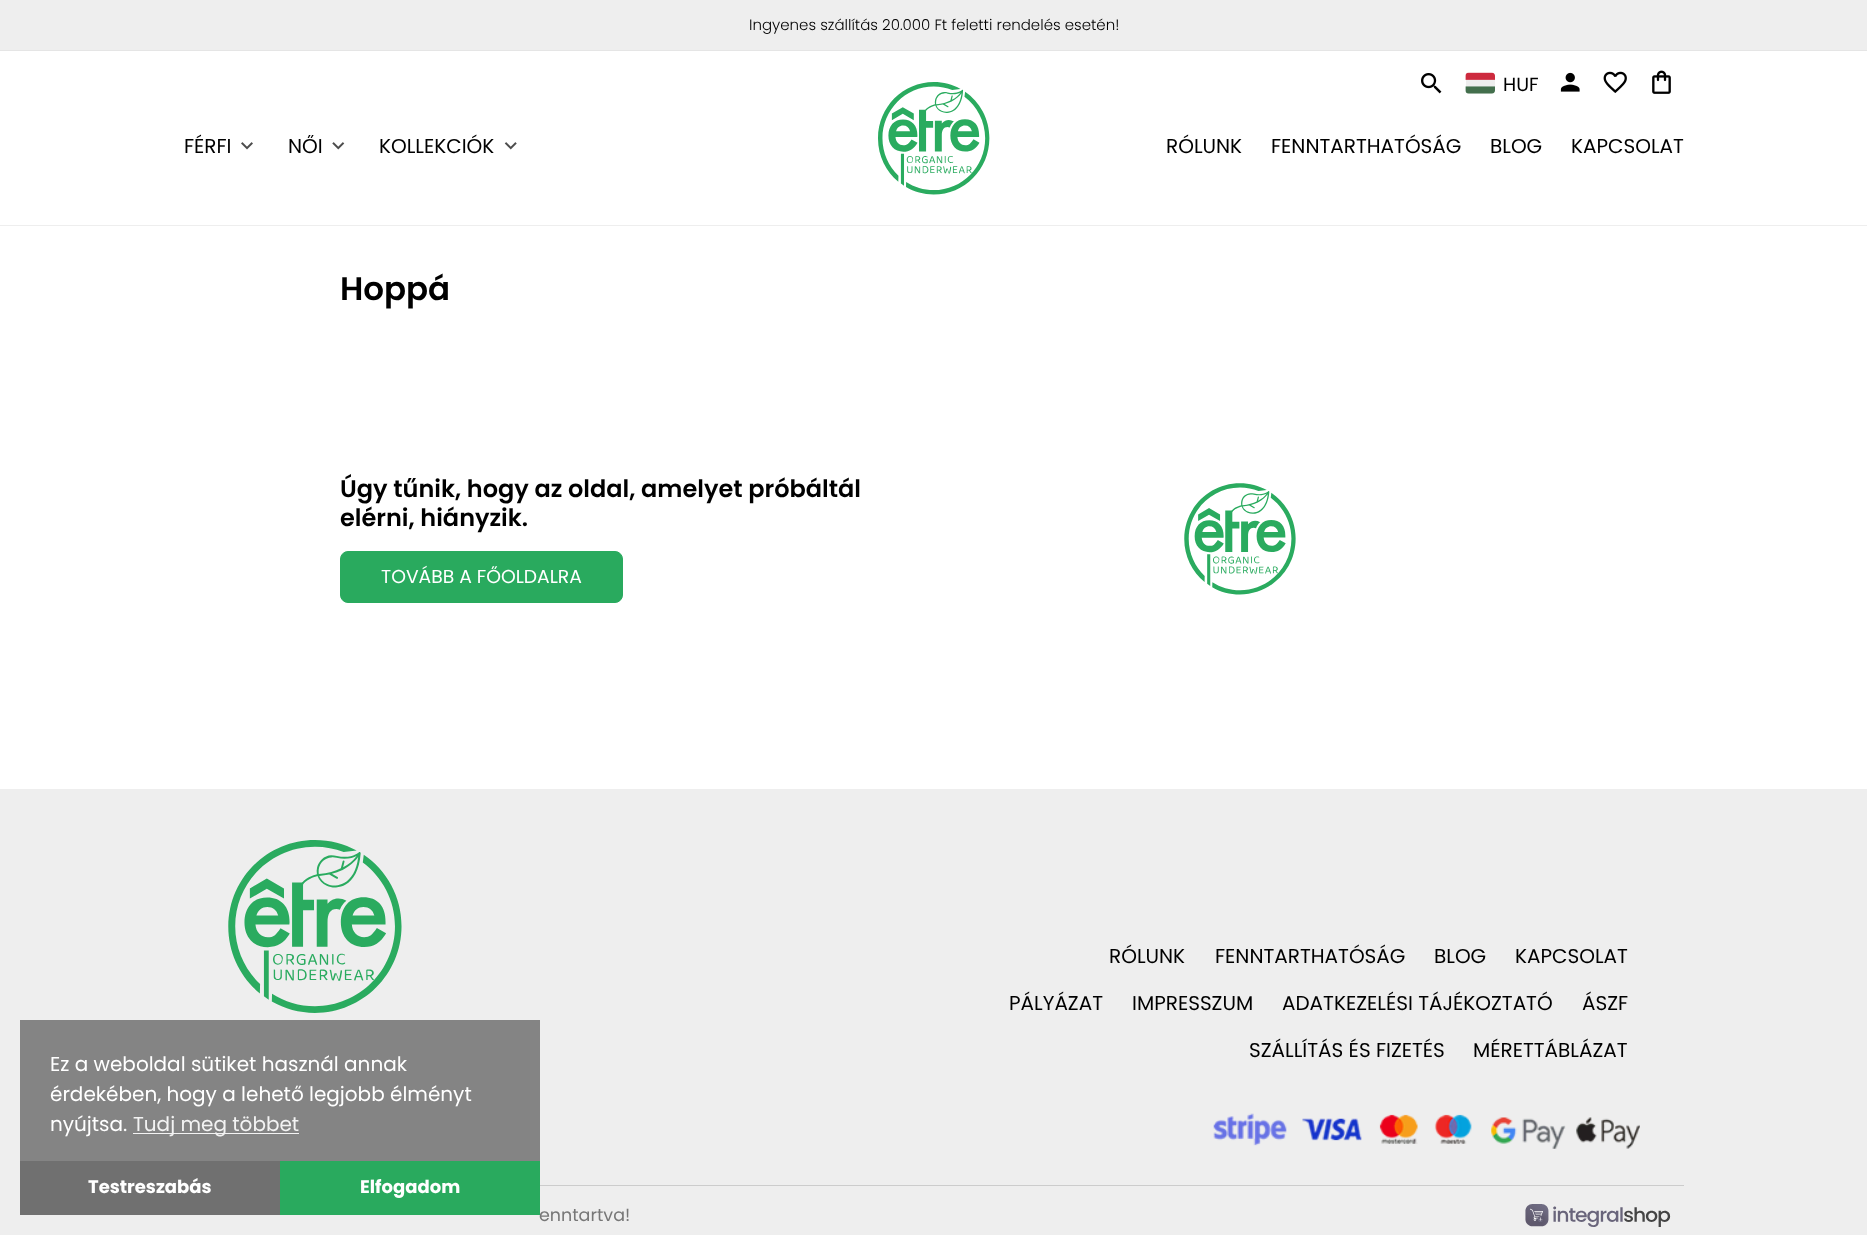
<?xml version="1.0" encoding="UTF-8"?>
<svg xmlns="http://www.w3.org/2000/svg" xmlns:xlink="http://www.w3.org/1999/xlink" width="1867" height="1235">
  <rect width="100%" height="100%" fill="#ffffff" />
  <rect y="225" width="1867" height="1" fill="#eeeeee" />
  <rect width="1867" height="50" fill="#eeeeee" />
  <rect y="50" width="1867" height="1" fill="#e5e5e5" />
  <image x="878" y="82" width="112" height="113" xlink:href="image1.png" />
  <image x="1421" y="73" width="21" height="21" xlink:href="image2.png" />
  <image x="1465" y="72" width="30" height="22" xlink:href="image3.png" />
  <image x="1560" y="72" width="20" height="20" xlink:href="image4.png" />
  <image x="1603" y="71" width="24" height="22" xlink:href="image5.png" />
  <image x="1652" y="70" width="19" height="24" xlink:href="image6.png" />
  <image x="241" y="142" width="12" height="8" xlink:href="image7.png" />
  <image x="332" y="142" width="13" height="8" xlink:href="image8.png" />
  <image x="504" y="142" width="13" height="8" xlink:href="image9.png" />
  <rect x="340.5" y="551.5" width="282" height="51" rx="7.5" fill="#29aa5e" stroke="#29aa5e" />
  <image x="1184" y="483" width="112" height="112" xlink:href="image10.png" />
  <rect y="789" width="1867" height="446" fill="#eeeeee" />
  <image x="228" y="840" width="174" height="173" xlink:href="image11.png" />
  <image x="1213" y="1113" width="427" height="36" xlink:href="image12.png" />
  <rect x="540" y="1185" width="1144" height="1" fill="#cccccc" />
  <image x="1525" y="1204" width="146" height="23" xlink:href="image13.png" />
  <rect x="20" y="1020" width="520" height="141" fill="#848484" />
  <rect x="133" y="1133" width="166" height="1" fill="#f3f3f3" />
  <rect x="20" y="1161" width="260" height="54" fill="#707070" />
  <text x="749" y="30" style="font-family: Poppins; font-size: 15px; font-weight: 300; fill: #000000">Ingyenes szállítás 20.000 Ft feletti rendelés esetén!</text>
  <text x="1503" y="91" style="font-family: Poppins; font-size: 19px; fill: #000000">HUF</text>
  <text x="184" y="153" style="font-family: Poppins; font-size: 20px; fill: #000000">FÉRFI</text>
  <text x="288" y="153" style="font-family: Poppins; font-size: 20px; fill: #000000">NŐI</text>
  <text x="379" y="153" style="font-family: Poppins; font-size: 20px; fill: #000000">KOLLEKCIÓK</text>
  <text x="1166" y="153" style="font-family: Poppins; font-size: 20px; fill: #000000">RÓLUNK</text>
  <text x="1271" y="153" style="font-family: Poppins; font-size: 20px; fill: #000000">FENNTARTHATÓSÁG</text>
  <text x="1490" y="153" style="font-family: Poppins; font-size: 20px; fill: #000000">BLOG</text>
  <text x="1571" y="153" style="font-family: Poppins; font-size: 20px; fill: #000000">KAPCSOLAT</text>
  <text x="340" y="300" style="font-family: Poppins; font-size: 32.5px; font-weight: 600; fill: #000000">Hoppá</text>
  <text x="340" y="497" style="font-family: Poppins; font-size: 24px; font-weight: 600; fill: #000000">Úgy tűnik, hogy az oldal, amelyet próbáltál</text>
  <text x="340" y="526" style="font-family: Poppins; font-size: 24px; font-weight: 600; fill: #000000">elérni, hiányzik.</text>
  <text x="381" y="583" style="font-family: Poppins; font-size: 18.75px; fill: #ffffff">TOVÁBB A FŐOLDALRA</text>
  <text x="1109" y="963" style="font-family: Poppins; font-size: 20px; fill: #000000">RÓLUNK</text>
  <text x="1215" y="963" style="font-family: Poppins; font-size: 20px; fill: #000000">FENNTARTHATÓSÁG</text>
  <text x="1434" y="963" style="font-family: Poppins; font-size: 20px; fill: #000000">BLOG</text>
  <text x="1515" y="963" style="font-family: Poppins; font-size: 20px; fill: #000000">KAPCSOLAT</text>
  <text x="1009" y="1010" style="font-family: Poppins; font-size: 20px; fill: #000000">PÁLYÁZAT</text>
  <text x="1132" y="1010" style="font-family: Poppins; font-size: 20px; fill: #000000">IMPRESSZUM</text>
  <text x="1282" y="1010" style="font-family: Poppins; font-size: 20px; fill: #000000">ADATKEZELÉSI TÁJÉKOZTATÓ</text>
  <text x="1582" y="1010" style="font-family: Poppins; font-size: 20px; fill: #000000">ÁSZF</text>
  <text x="1249" y="1057" style="font-family: Poppins; font-size: 20px; fill: #000000">SZÁLLÍTÁS ÉS FIZETÉS</text>
  <text x="1473" y="1057" style="font-family: Poppins; font-size: 20px; fill: #000000">MÉRETTÁBLÁZAT</text>
  <text x="539" y="1221" style="font-family: Poppins; font-size: 17.5px; fill: #777777">enntartva!</text>
  <text x="50" y="1071" style="font-family: Poppins; font-size: 20px; fill: #ffffff">Ez a weboldal sütiket használ annak</text>
  <text x="50" y="1101" style="font-family: Poppins; font-size: 20px; fill: #ffffff">érdekében, hogy a lehető legjobb élményt</text>
  <text x="50" y="1131" style="font-family: Poppins; font-size: 20px; fill: #ffffff">nyújtsa.</text>
  <text x="133" y="1131" style="font-family: Poppins; font-size: 20px; fill: #f3f3f3">Tudj meg többet</text>
  <text x="88" y="1193" style="font-family: Poppins; font-size: 18px; font-weight: bold; fill: #ffffff">Testreszabás</text>
  <rect x="280" y="1161" width="260" height="54" fill="#29aa5e" />
  <text x="360" y="1193" style="font-family: Poppins; font-size: 18px; font-weight: bold; fill: #ffffff">Elfogadom</text>
</svg>
